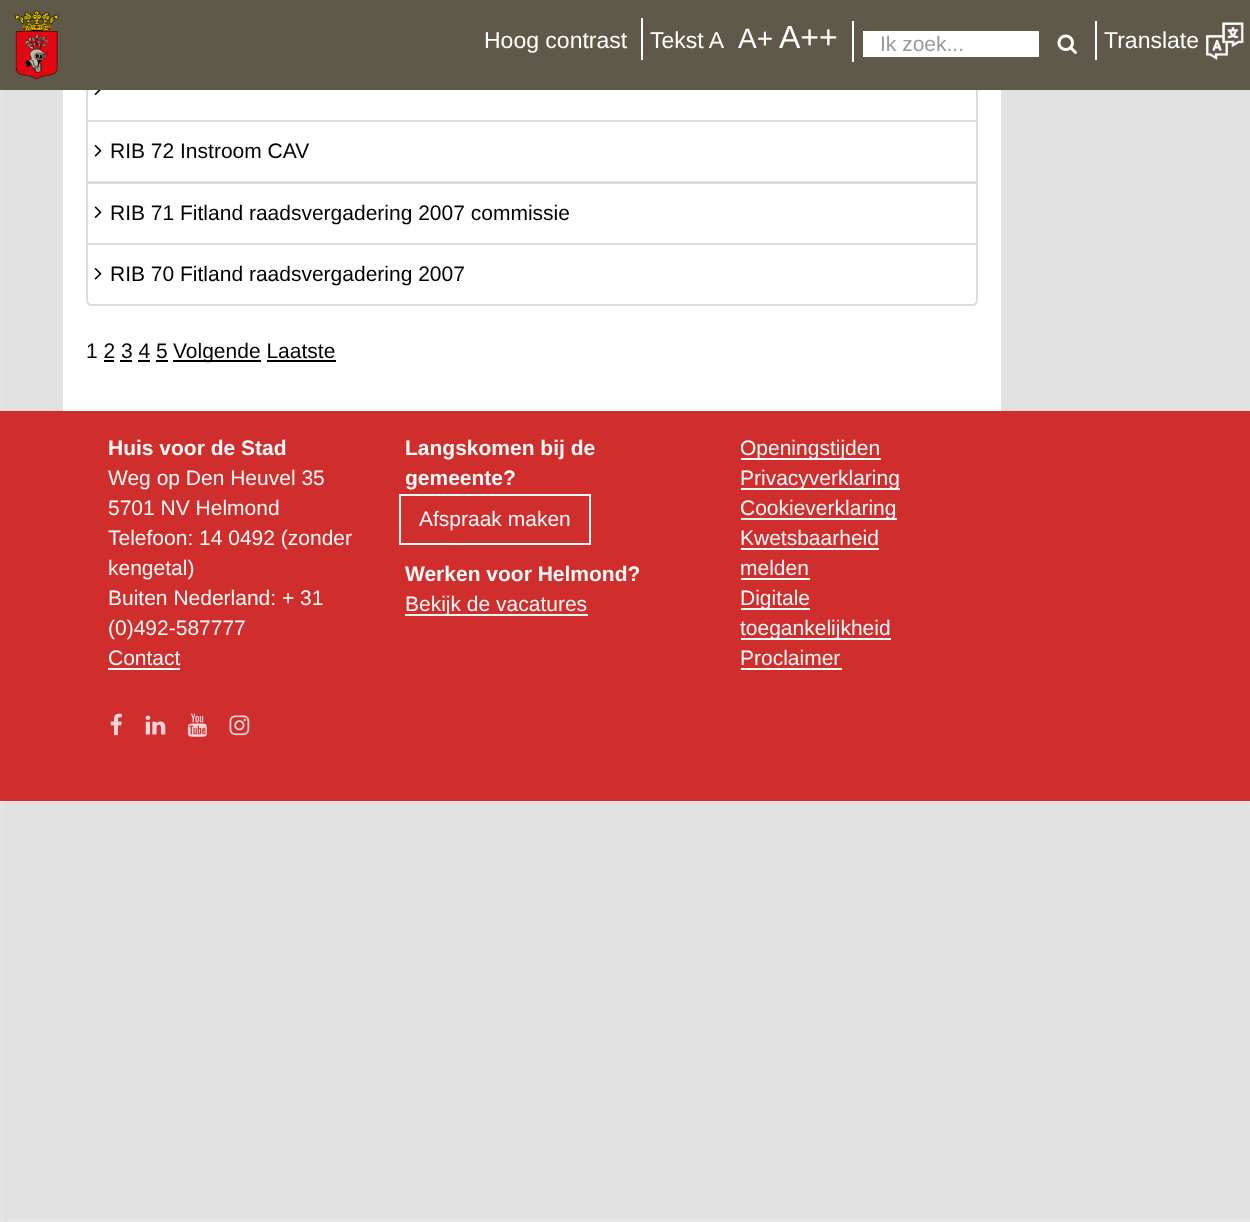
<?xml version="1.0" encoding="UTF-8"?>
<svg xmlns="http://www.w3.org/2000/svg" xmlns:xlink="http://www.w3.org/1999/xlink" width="1250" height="1222">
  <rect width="100%" height="100%" fill="#ffffff" />
  <image x="0" y="90" width="1250" height="1132" xlink:href="image4.png" />
  <rect x="63" y="90" width="938" height="321" fill="#ffffff" />
  <rect x="87" y="60" width="890" height="61" fill="none" stroke="#dddddd" stroke-width="2" />
  <rect width="1250" height="90" fill="#5f594a" />
  <image x="15" y="10" width="44" height="70" xlink:href="image1.png" />
  <rect x="641" y="18" width="2" height="42" fill="#ffffff" />
  <rect x="852" y="21" width="2" height="41" fill="#ffffff" />
  <rect x="863" y="31" width="176" height="26" fill="#ffffff" />
  <image x="1057" y="34" width="20" height="20" xlink:href="image2.png" />
  <rect x="1095" y="21" width="2" height="39" fill="#ffffff" />
  <image x="1206" y="22" width="38" height="39" xlink:href="image3.png" />
  <image x="94" y="90" width="7" height="5" xlink:href="image5.png" />
  <rect x="87" y="121" width="890" height="61" fill="none" stroke="#dddddd" stroke-width="2" />
  <image x="94" y="145" width="8" height="12" xlink:href="image6.png" />
  <rect x="87" y="183" width="890" height="61" fill="none" stroke="#dddddd" stroke-width="2" />
  <image x="94" y="206" width="8" height="12" xlink:href="image7.png" />
  <path d="M 87 244 h 890 v 56 c 0 3 -2 5 -5 5 h -880 c -3 0 -5 -2 -5 -5 z" fill="#ffffff" stroke="#dddddd" stroke-width="2" />
  <image x="94" y="268" width="8" height="12" xlink:href="image6.png" />
  <rect x="173" y="360" width="88" height="2" fill="#000000" />
  <rect x="104" y="360" width="10" height="2" fill="#000000" />
  <rect x="120" y="360" width="12" height="2" fill="#000000" />
  <rect x="138" y="360" width="12" height="2" fill="#000000" />
  <rect x="156" y="360" width="12" height="2" fill="#000000" />
  <rect x="267" y="360" width="69" height="2" fill="#000000" />
  <rect y="411" width="1250" height="390" fill="#cc0000" fill-opacity="0.8" />
  <rect x="108" y="668" width="72" height="2" fill="#f9f9f9" />
  <image x="110" y="713" width="12" height="23" xlink:href="image8.png" />
  <image x="145" y="715" width="21" height="20" xlink:href="image9.png" />
  <image x="187" y="713" width="20" height="24" xlink:href="image10.png" />
  <image x="229" y="715" width="21" height="21" xlink:href="image11.png" />
  <rect x="400" y="495" width="190" height="49" fill="none" stroke="#f9f9f9" stroke-width="2" />
  <rect x="405" y="614" width="183" height="2" fill="#f9f9f9" />
  <rect x="741" y="458" width="140" height="2" fill="#f9f9f9" />
  <rect x="741" y="488" width="159" height="2" fill="#f9f9f9" />
  <rect x="741" y="518" width="156" height="2" fill="#f9f9f9" />
  <rect x="741" y="548" width="138" height="2" fill="#f9f9f9" />
  <rect x="741" y="578" width="69" height="2" fill="#f9f9f9" />
  <rect x="741" y="608" width="69" height="2" fill="#f9f9f9" />
  <rect x="741" y="638" width="150" height="2" fill="#f9f9f9" />
  <rect x="741" y="668" width="101" height="2" fill="#f9f9f9" />
  <text x="484" y="48" style="font-family: Liberation Sans; font-size: 23px; fill: #ffffff">Hoog contrast</text>
  <text x="650" y="48" style="font-family: Liberation Sans; font-size: 23px; fill: #ffffff">Tekst A</text>
  <text x="738" y="48" style="font-family: Liberation Sans; font-size: 28px; fill: #ffffff">A+</text>
  <text x="779" y="48" style="font-family: Liberation Sans; font-size: 32px; fill: #ffffff">A++</text>
  <text x="880" y="51" style="font-family: Liberation Sans; font-size: 21px; fill: #999999">Ik zoek...</text>
  <text x="1104" y="48" style="font-family: Liberation Sans; font-size: 23px; fill: #ffffff">Translate</text>
  <text x="110" y="158" style="font-family: Liberation Sans; font-size: 21px; fill: #000000">RIB 72 Instroom CAV</text>
  <text x="110" y="220" style="font-family: Liberation Sans; font-size: 21px; fill: #000000">RIB 71 Fitland raadsvergadering 2007 commissie</text>
  <text x="110" y="281" style="font-family: Liberation Sans; font-size: 21px; fill: #000000">RIB 70 Fitland raadsvergadering 2007</text>
  <text x="86" y="358" style="font-family: Liberation Sans; font-size: 21px; fill: #000000">1 2 3 4 5</text>
  <text x="173" y="358" style="font-family: Liberation Sans; font-size: 21px; fill: #000000">Volgende Laatste</text>
  <text x="108" y="455" style="font-family: Liberation Sans; font-size: 21px; font-weight: bold; fill: #f9f9f9">Huis voor de Stad</text>
  <text x="108" y="485" style="font-family: Liberation Sans; font-size: 21px; fill: #f9f9f9">Weg op Den Heuvel 35</text>
  <text x="108" y="515" style="font-family: Liberation Sans; font-size: 21px; fill: #f9f9f9">5701 NV Helmond</text>
  <text x="108" y="545" style="font-family: Liberation Sans; font-size: 21px; fill: #f9f9f9">Telefoon: 14 0492 (zonder</text>
  <text x="108" y="575" style="font-family: Liberation Sans; font-size: 21px; fill: #f9f9f9">kengetal)</text>
  <text x="108" y="605" style="font-family: Liberation Sans; font-size: 21px; fill: #f9f9f9">Buiten Nederland: + 31</text>
  <text x="108" y="635" style="font-family: Liberation Sans; font-size: 21px; fill: #f9f9f9">(0)492-587777</text>
  <text x="108" y="665" style="font-family: Liberation Sans; font-size: 21px; fill: #f9f9f9">Contact</text>
  <text x="405" y="455" style="font-family: Liberation Sans; font-size: 21px; font-weight: bold; fill: #f9f9f9">Langskomen bij de</text>
  <text x="405" y="485" style="font-family: Liberation Sans; font-size: 21px; font-weight: bold; fill: #f9f9f9">gemeente?</text>
  <text x="419" y="526" style="font-family: Liberation Sans; font-size: 21px; fill: #f9f9f9">Afspraak maken</text>
  <text x="405" y="581" style="font-family: Liberation Sans; font-size: 21px; font-weight: bold; fill: #f9f9f9">Werken voor Helmond?</text>
  <text x="405" y="611" style="font-family: Liberation Sans; font-size: 21px; fill: #f9f9f9">Bekijk de vacatures</text>
  <text x="740" y="455" style="font-family: Liberation Sans; font-size: 21px; fill: #f9f9f9">Openingstijden</text>
  <text x="740" y="485" style="font-family: Liberation Sans; font-size: 21px; fill: #f9f9f9">Privacyverklaring</text>
  <text x="740" y="515" style="font-family: Liberation Sans; font-size: 21px; fill: #f9f9f9">Cookieverklaring</text>
  <text x="740" y="545" style="font-family: Liberation Sans; font-size: 21px; fill: #f9f9f9">Kwetsbaarheid</text>
  <text x="740" y="575" style="font-family: Liberation Sans; font-size: 21px; fill: #f9f9f9">melden</text>
  <text x="740" y="605" style="font-family: Liberation Sans; font-size: 21px; fill: #f9f9f9">Digitale</text>
  <text x="740" y="635" style="font-family: Liberation Sans; font-size: 21px; fill: #f9f9f9">toegankelijkheid</text>
  <text x="740" y="665" style="font-family: Liberation Sans; font-size: 21px; fill: #f9f9f9">Proclaimer</text>
</svg>
